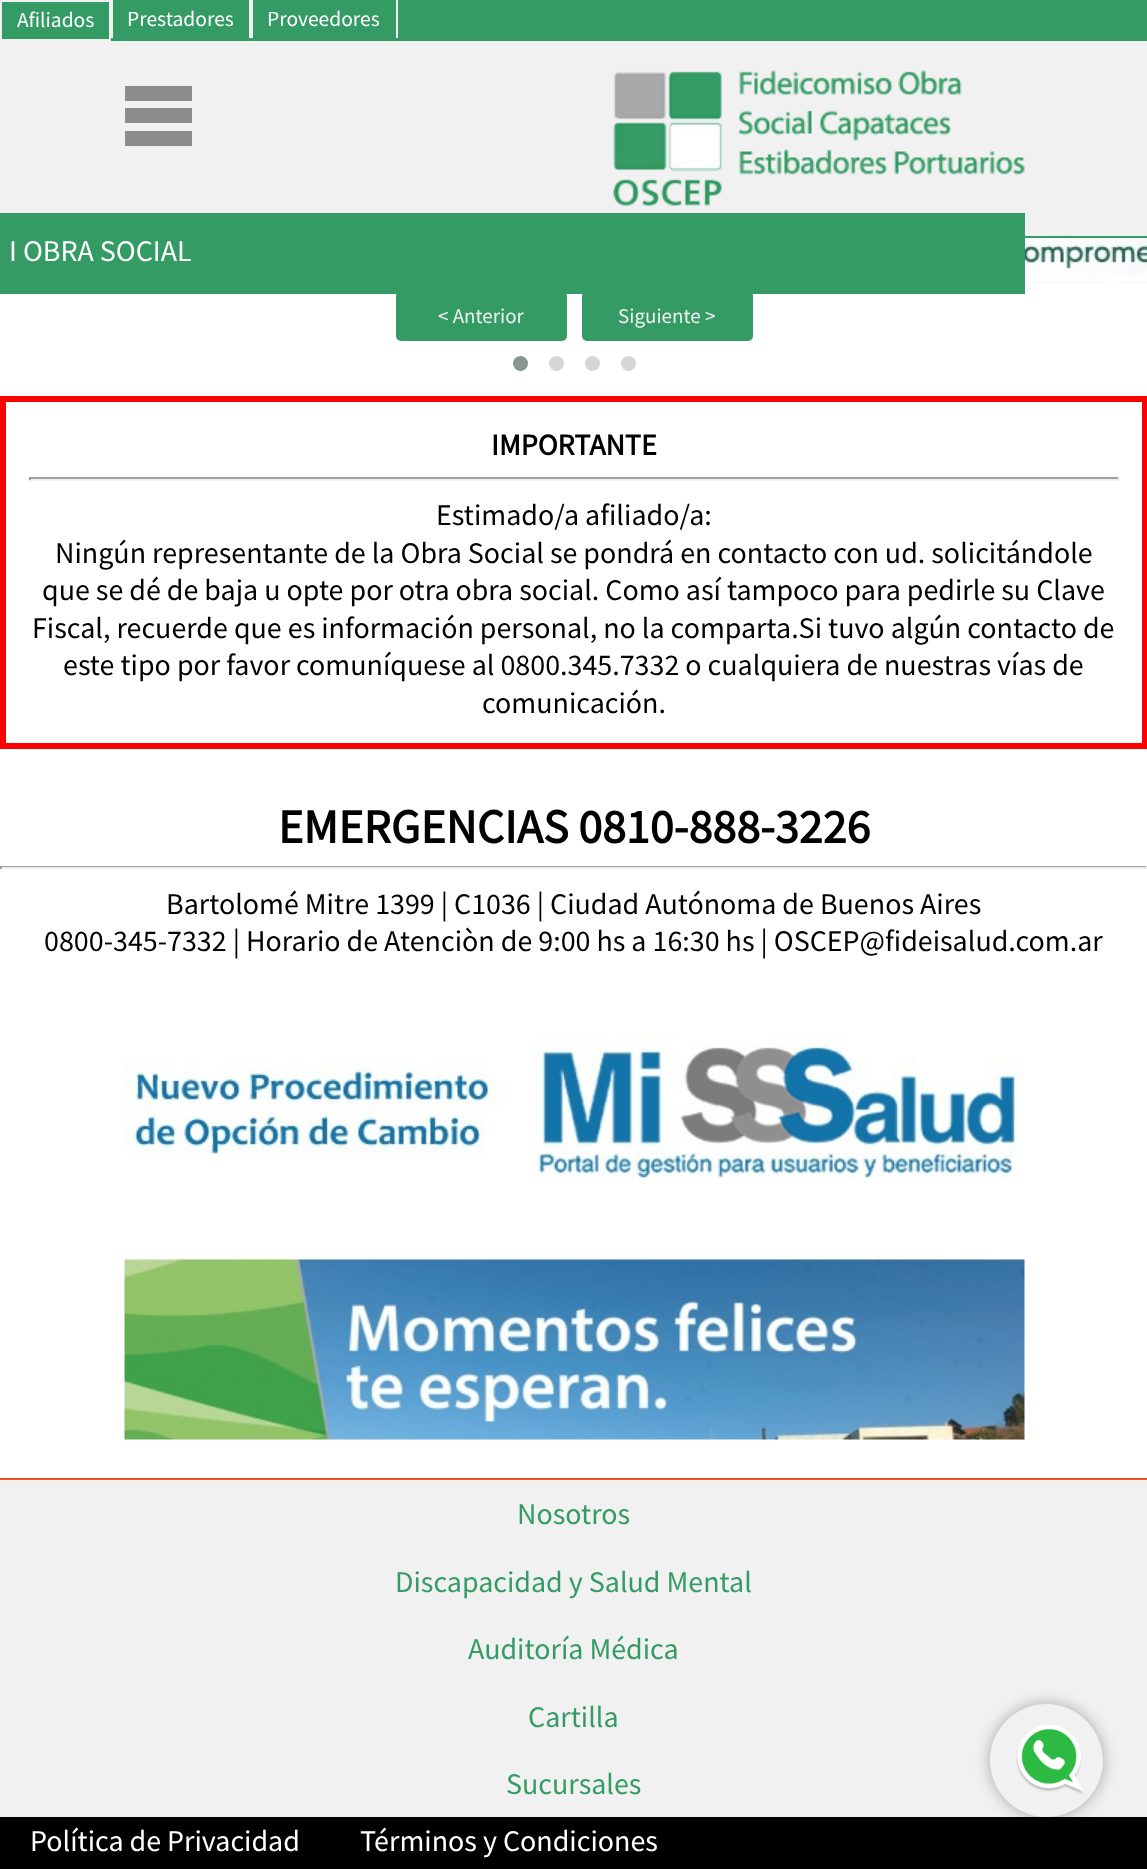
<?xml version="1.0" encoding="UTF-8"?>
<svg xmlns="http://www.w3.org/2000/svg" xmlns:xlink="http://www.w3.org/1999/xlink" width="1147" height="1869">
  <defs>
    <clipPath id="clip1"><path d="M 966 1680 h 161 v 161 h -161 z m 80.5 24 c 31 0 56.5 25.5 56.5 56.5 c 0 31 -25.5 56.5 -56.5 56.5 c -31 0 -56.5 -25.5 -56.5 -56.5 c 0 -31 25.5 -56.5 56.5 -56.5 z" clip-rule="evenodd" /></clipPath>
  </defs>
  <rect width="100%" height="100%" fill="#ffffff" />
  <rect x="2" width="1145" height="41" fill="#349b64" />
  <rect x="1" y="1" width="109" height="39" fill="none" stroke="#f1f1f1" stroke-width="2" />
  <rect x="249" width="4" height="38" fill="#f1f1f1" />
  <rect x="111" width="2" height="38" fill="#f1f1f1" />
  <rect x="396" width="2" height="38" fill="#f1f1f1" />
  <rect y="41" width="1147" height="195" fill="#f1f1f1" />
  <rect x="1025" y="236" width="122" height="2" fill="#349b64" />
  <rect x="125" y="86" width="67" height="15" fill="#8c8b8b" />
  <rect x="125" y="108" width="67" height="15" fill="#8c8b8b" />
  <rect x="125" y="131" width="67" height="15" fill="#8c8b8b" />
  <image x="613" y="70" width="412" height="136" xlink:href="image1.png" />
  <rect x="396" y="291" width="171" height="50" rx="5" fill="#349b64" />
  <rect x="582" y="291" width="171" height="50" rx="5" fill="#349b64" />
  <rect y="213" width="1025" height="81" fill="#349b64" />
  <rect x="1025" y="283" width="122" height="1" fill="#fbfbfb" />
  <image x="1025" y="238" width="122" height="45" xlink:href="image2.png" />
  <circle cx="520.5" cy="363.5" r="7.5" fill="#869791" />
  <circle cx="556.5" cy="363.5" r="7.5" fill="#d6d6d6" />
  <circle cx="592.5" cy="363.5" r="7.5" fill="#d6d6d6" />
  <circle cx="628.5" cy="363.5" r="7.5" fill="#d6d6d6" />
  <rect x="3" y="399" width="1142" height="347" fill="none" stroke="#ff0000" stroke-width="6" />
  <rect x="29" y="477" width="1090" height="2" fill="#9f9f9f" />
  <rect x="1118" y="477" width="2" height="3" fill="#eeeeee" />
  <rect x="29" y="479" width="1090" height="2" fill="#eeeeee" />
  <rect x="29" y="477" width="2" height="3" fill="#9f9f9f" />
  <rect y="866" width="1147" height="1" fill="#9f9f9f" />
  <rect x="1146" y="866" width="1" height="3" fill="#eeeeee" />
  <rect y="867" width="1147" height="2" fill="#eeeeee" />
  <rect y="866" width="2" height="3" fill="#9f9f9f" />
  <image x="124" y="1033" width="900" height="146" xlink:href="image3.png" />
  <image x="124" y="1258" width="901" height="182" xlink:href="image4.png" />
  <rect y="1480" width="1147" height="337" fill="#f1f1f1" />
  <rect y="1478" width="1147" height="2" fill="#f25022" />
  <rect y="1817" width="1147" height="52" fill="#000000" />
  <g clip-path="url(#clip1)">
    <rect x="990" y="1704" width="113" height="113" rx="56.5" fill="#000000" fill-opacity="0.3" filter="blur(7.5px)" />
  </g>
  <image x="1016" y="1724" width="68" height="70" xlink:href="image5.png" />
  <text x="17" y="27" style="font-family: Source Sans Pro; font-size: 21.5px; fill: #ffffff">Afiliados</text>
  <text x="127" y="26" style="font-family: Source Sans Pro; font-size: 21.5px; fill: #ffffff">Prestadores</text>
  <text x="267" y="26" style="font-family: Source Sans Pro; font-size: 21.5px; fill: #ffffff">Proveedores</text>
  <text x="9" y="261" style="font-family: Source Sans Pro; font-size: 30px; fill: #ffffff">I OBRA SOCIAL</text>
  <text x="438" y="323" style="font-family: Source Sans Pro; font-size: 21px; fill: #f1f1f1">&lt; Anterior</text>
  <text x="618" y="323" style="font-family: Source Sans Pro; font-size: 21px; fill: #f1f1f1">Siguiente &gt;</text>
  <text x="491" y="455" style="font-family: Source Sans Pro; font-size: 30px; font-weight: bold; fill: #000000">IMPORTANTE</text>
  <text x="436" y="525" style="font-family: Source Sans Pro; font-size: 30px; fill: #000000">Estimado/a afiliado/a:</text>
  <text x="55" y="563" style="font-family: Source Sans Pro; font-size: 30px; fill: #000000">Ningún representante de la Obra Social se pondrá en contacto con ud. solicitándole</text>
  <text x="42" y="600" style="font-family: Source Sans Pro; font-size: 30px; fill: #000000">que se dé de baja u opte por otra obra social. Como así tampoco para pedirle su Clave</text>
  <text x="32" y="638" style="font-family: Source Sans Pro; font-size: 30px; fill: #000000">Fiscal, recuerde que es información personal, no la comparta.Si tuvo algún contacto de</text>
  <text x="63" y="675" style="font-family: Source Sans Pro; font-size: 30px; fill: #000000">este tipo por favor comuníquese al 0800.345.7332 o cualquiera de nuestras vías de</text>
  <text x="482" y="713" style="font-family: Source Sans Pro; font-size: 30px; fill: #000000">comunicación.</text>
  <text x="278" y="843" style="font-family: Source Sans Pro; font-size: 48px; font-weight: bold; fill: #000000">EMERGENCIAS 0810-888-3226</text>
  <text x="166" y="914" style="font-family: Source Sans Pro; font-size: 30px; fill: #000000">Bartolomé Mitre 1399 | C1036 | Ciudad Autónoma de Buenos Aires</text>
  <text x="44" y="951" style="font-family: Source Sans Pro; font-size: 30px; fill: #000000">0800-345-7332 | Horario de Atenciòn de 9:00 hs a 16:30 hs | OSCEP@fideisalud.com.ar</text>
  <text x="517" y="1524" style="font-family: Source Sans Pro; font-size: 30px; fill: #349b64">Nosotros</text>
  <text x="395" y="1592" style="font-family: Source Sans Pro; font-size: 30px; fill: #349b64">Discapacidad y Salud Mental</text>
  <text x="468" y="1659" style="font-family: Source Sans Pro; font-size: 30px; fill: #349b64">Auditoría Médica</text>
  <text x="528" y="1727" style="font-family: Source Sans Pro; font-size: 30px; fill: #349b64">Cartilla</text>
  <text x="506" y="1794" style="font-family: Source Sans Pro; font-size: 30px; fill: #349b64">Sucursales</text>
  <text x="30" y="1851" style="font-family: Source Sans Pro; font-size: 30px; fill: #ffffff">Política de Privacidad</text>
  <text x="360" y="1851" style="font-family: Source Sans Pro; font-size: 30px; fill: #ffffff">Términos y Condiciones</text>
</svg>
